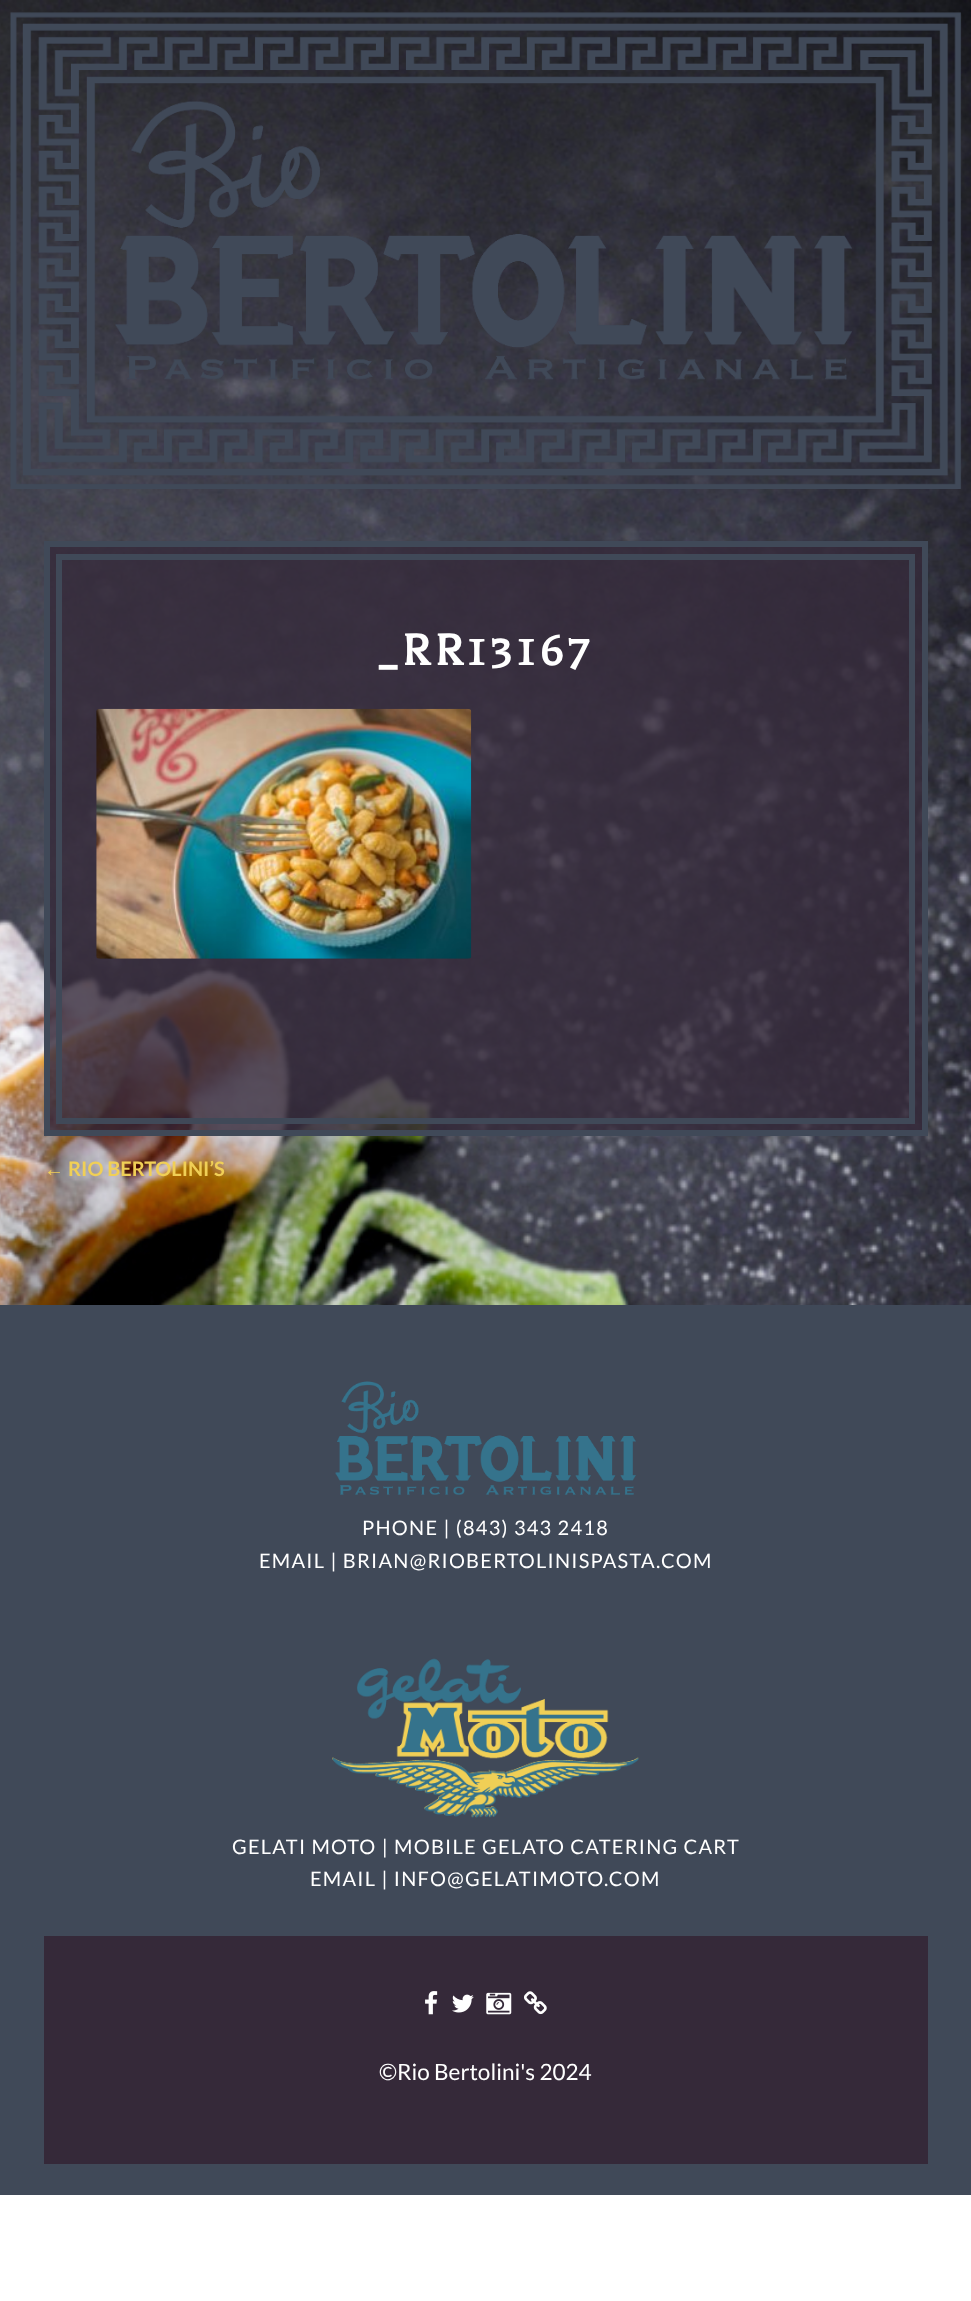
<?xml version="1.0" encoding="UTF-8"?>
<svg xmlns="http://www.w3.org/2000/svg" xmlns:xlink="http://www.w3.org/1999/xlink" width="971" height="2301">
  <rect width="100%" height="100%" fill="#ffffff" />
  <image x="0" y="0" width="971" height="1305" xlink:href="image1.png" />
  <image x="10" y="12" width="952" height="477" xlink:href="image2.png" />
  <rect x="47" y="544" width="878" height="589" fill="#352939" fill-opacity="0.8" stroke="#404958" stroke-width="6" />
  <rect x="59" y="557" width="853" height="564" fill="none" stroke="#404958" stroke-width="6" />
  <image x="96" y="708" width="376" height="251" xlink:href="image3.png" />
  <rect y="1305" width="971" height="890" fill="#404958" />
  <image x="335" y="1381" width="301" height="114" xlink:href="image4.png" />
  <image x="332" y="1658" width="307" height="160" xlink:href="image5.png" />
  <rect x="44" y="1936" width="884" height="228" fill="#352939" />
  <image x="425" y="1991" width="13" height="24" xlink:href="image6.png" />
  <image x="452" y="1994" width="22" height="19" xlink:href="image7.png" />
  <image x="486" y="1992" width="26" height="23" xlink:href="image8.png" />
  <image x="524" y="1991" width="23" height="24" xlink:href="image9.png" />
  <text x="378" y="665" style="font-family: Balthazar; font-size: 50px; font-weight: bold; letter-spacing: 5px; fill: #ffffff">_RR13167</text>
  <text x="44" y="1176" style="font-family: Liberation Sans; font-size: 20px; font-weight: bold; fill: #f0cf56">←</text>
  <text x="68" y="1176" style="font-family: Lato; font-size: 20px; font-weight: bold; fill: #f0cf56">RIO BERTOLINI’S</text>
  <text x="362" y="1535" style="font-family: Lato; font-size: 20px; letter-spacing: 1.25px; fill: #ffffff">PHONE | (843) 343 2418</text>
  <text x="259" y="1568" style="font-family: Lato; font-size: 20px; letter-spacing: 1.25px; fill: #ffffff">EMAIL | BRIAN@RIOBERTOLINISPASTA.COM</text>
  <text x="232" y="1854" style="font-family: Lato; font-size: 20px; letter-spacing: 1.25px; fill: #ffffff">GELATI MOTO | MOBILE GELATO CATERING CART</text>
  <text x="310" y="1886" style="font-family: Lato; font-size: 20px; letter-spacing: 1.25px; fill: #ffffff">EMAIL | INFO@GELATIMOTO.COM</text>
  <text x="379" y="2080" style="font-family: Lato; font-size: 22.5px; fill: #ffffff">©Rio Bertolini's 2024</text>
</svg>
